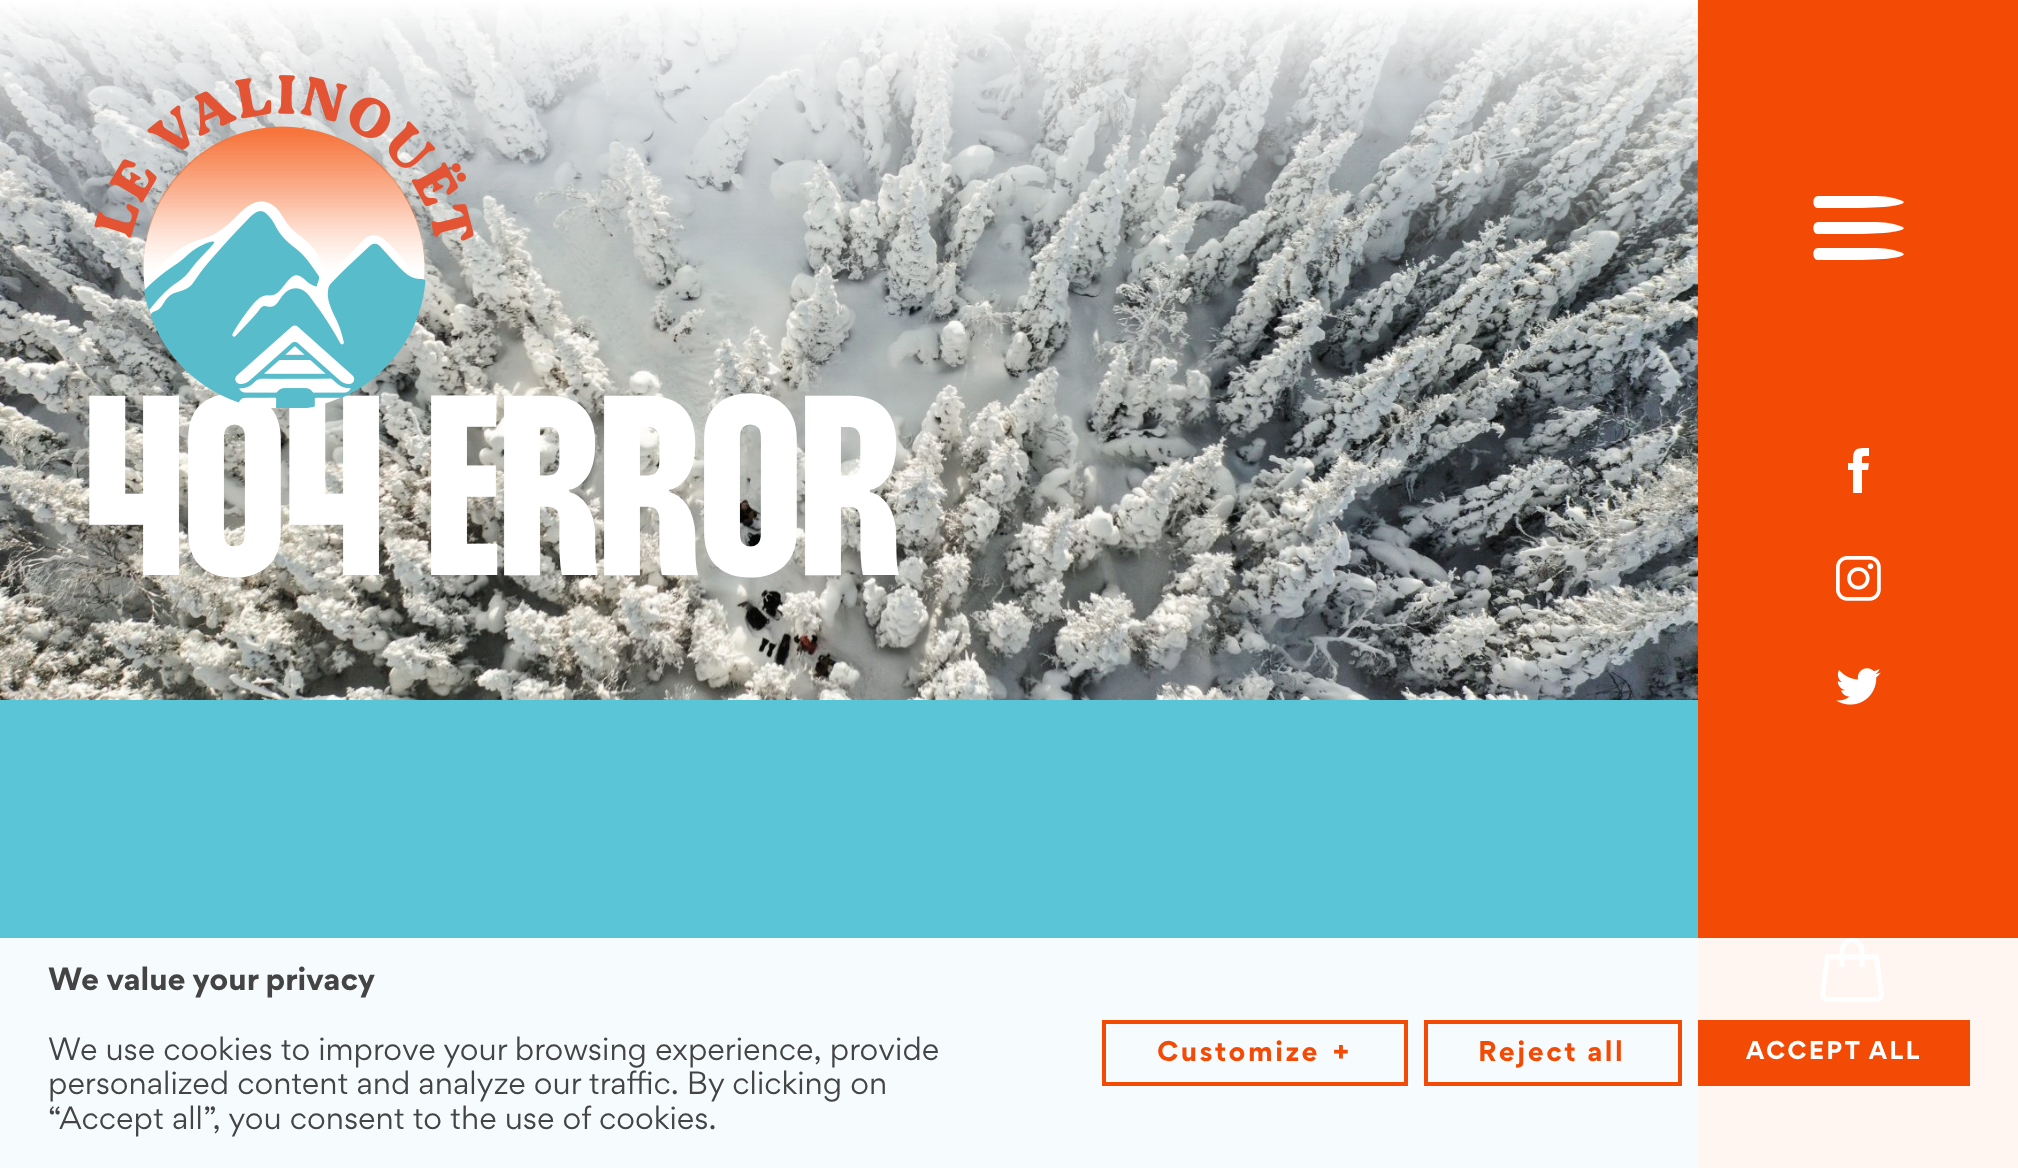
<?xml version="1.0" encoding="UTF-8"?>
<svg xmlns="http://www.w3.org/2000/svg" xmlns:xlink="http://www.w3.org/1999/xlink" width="2018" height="1168">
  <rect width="100%" height="100%" fill="#ffffff" />
  <image x="0" y="0" width="1698" height="700" xlink:href="image2.png" />
  <rect y="700" width="1698" height="468" fill="#59c5d7" />
  <rect x="1698" width="320" height="1168" fill="#f34b06" />
  <path d="M 1818 196 h 50 c 11 0 22 0 32 4 c 14 4 -15 7 -16 7 c -15 1 -30 1 -46 1 h -21 c -5 -1 -5 -12 1 -12 z" fill="#ffffff" />
  <path d="M 1818 222 h 50 c 11 0 22 0 32 4 c 14 4 -15 7 -16 7 c -15 1 -30 1 -46 1 h -21 c -5 -1 -5 -12 1 -12 z" fill="#ffffff" />
  <path d="M 1818 248 h 50 c 11 0 22 0 32 4 c 14 4 -15 7 -16 7 c -15 1 -30 1 -46 1 h -21 c -5 -1 -5 -12 1 -12 z" fill="#ffffff" />
  <path d="M 1862 463 c 0 -8 -1 -7 7 -7 v -8 c -14 0 -16 0 -16 15 h -5 v 7 h 5 v 23 h 9 v -23 h 6 l 1 -7 z" fill="#ffffff" />
  <image x="1836" y="556" width="45" height="45" xlink:href="image3.png" />
  <image x="1836" y="668" width="45" height="37" xlink:href="image4.png" />
  <image x="1820" y="938" width="64" height="64" xlink:href="image5.png" />
  <rect y="938" width="2018" height="230" fill="#ffffff" fill-opacity="0.95" />
  <rect x="1104" y="1022" width="302" height="62" fill="none" stroke="#f34b06" stroke-width="4" />
  <rect x="1426" y="1022" width="254" height="62" fill="none" stroke="#f34b06" stroke-width="4" />
  <rect x="1698" y="1020" width="272" height="66" fill="#f34b06" />
  <text x="85" y="575" style="font-family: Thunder; font-size: 256px; font-weight: bold; fill: #ffffff">404 ERROR</text>
  <image x="94" y="75" width="380" height="333" xlink:href="image1.png" />
  <text x="48" y="990" style="font-family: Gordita; font-size: 28.8px; font-weight: bold; fill: #444444">We value your privacy</text>
  <text x="48" y="1060" style="font-family: Gordita; font-size: 28.8px; fill: #444444">We use cookies to improve your browsing experience, provide</text>
  <text x="48" y="1094" style="font-family: Gordita; font-size: 28.8px; fill: #444444">personalized content and analyze our traffic. By clicking on</text>
  <text x="48" y="1129" style="font-family: Gordita; font-size: 28.8px; fill: #444444">“Accept all”, you consent to the use of cookies.</text>
  <text x="1157" y="1061" style="font-family: Gordita; font-size: 25.5px; font-weight: bold; letter-spacing: 2.5px; fill: #f34b06">Customize</text>
  <text x="1333" y="1061" style="font-family: Gordita; font-size: 25.5px; font-weight: bold; letter-spacing: 2.5px; fill: #f34b06">+</text>
  <text x="1478" y="1061" style="font-family: Gordita; font-size: 25.5px; font-weight: bold; letter-spacing: 2.5px; fill: #f34b06">Reject all</text>
  <text x="1746" y="1059" style="font-family: Gordita; font-size: 23px; font-weight: bold; letter-spacing: 2.25px; fill: #ffffff">ACCEPT ALL</text>
</svg>
